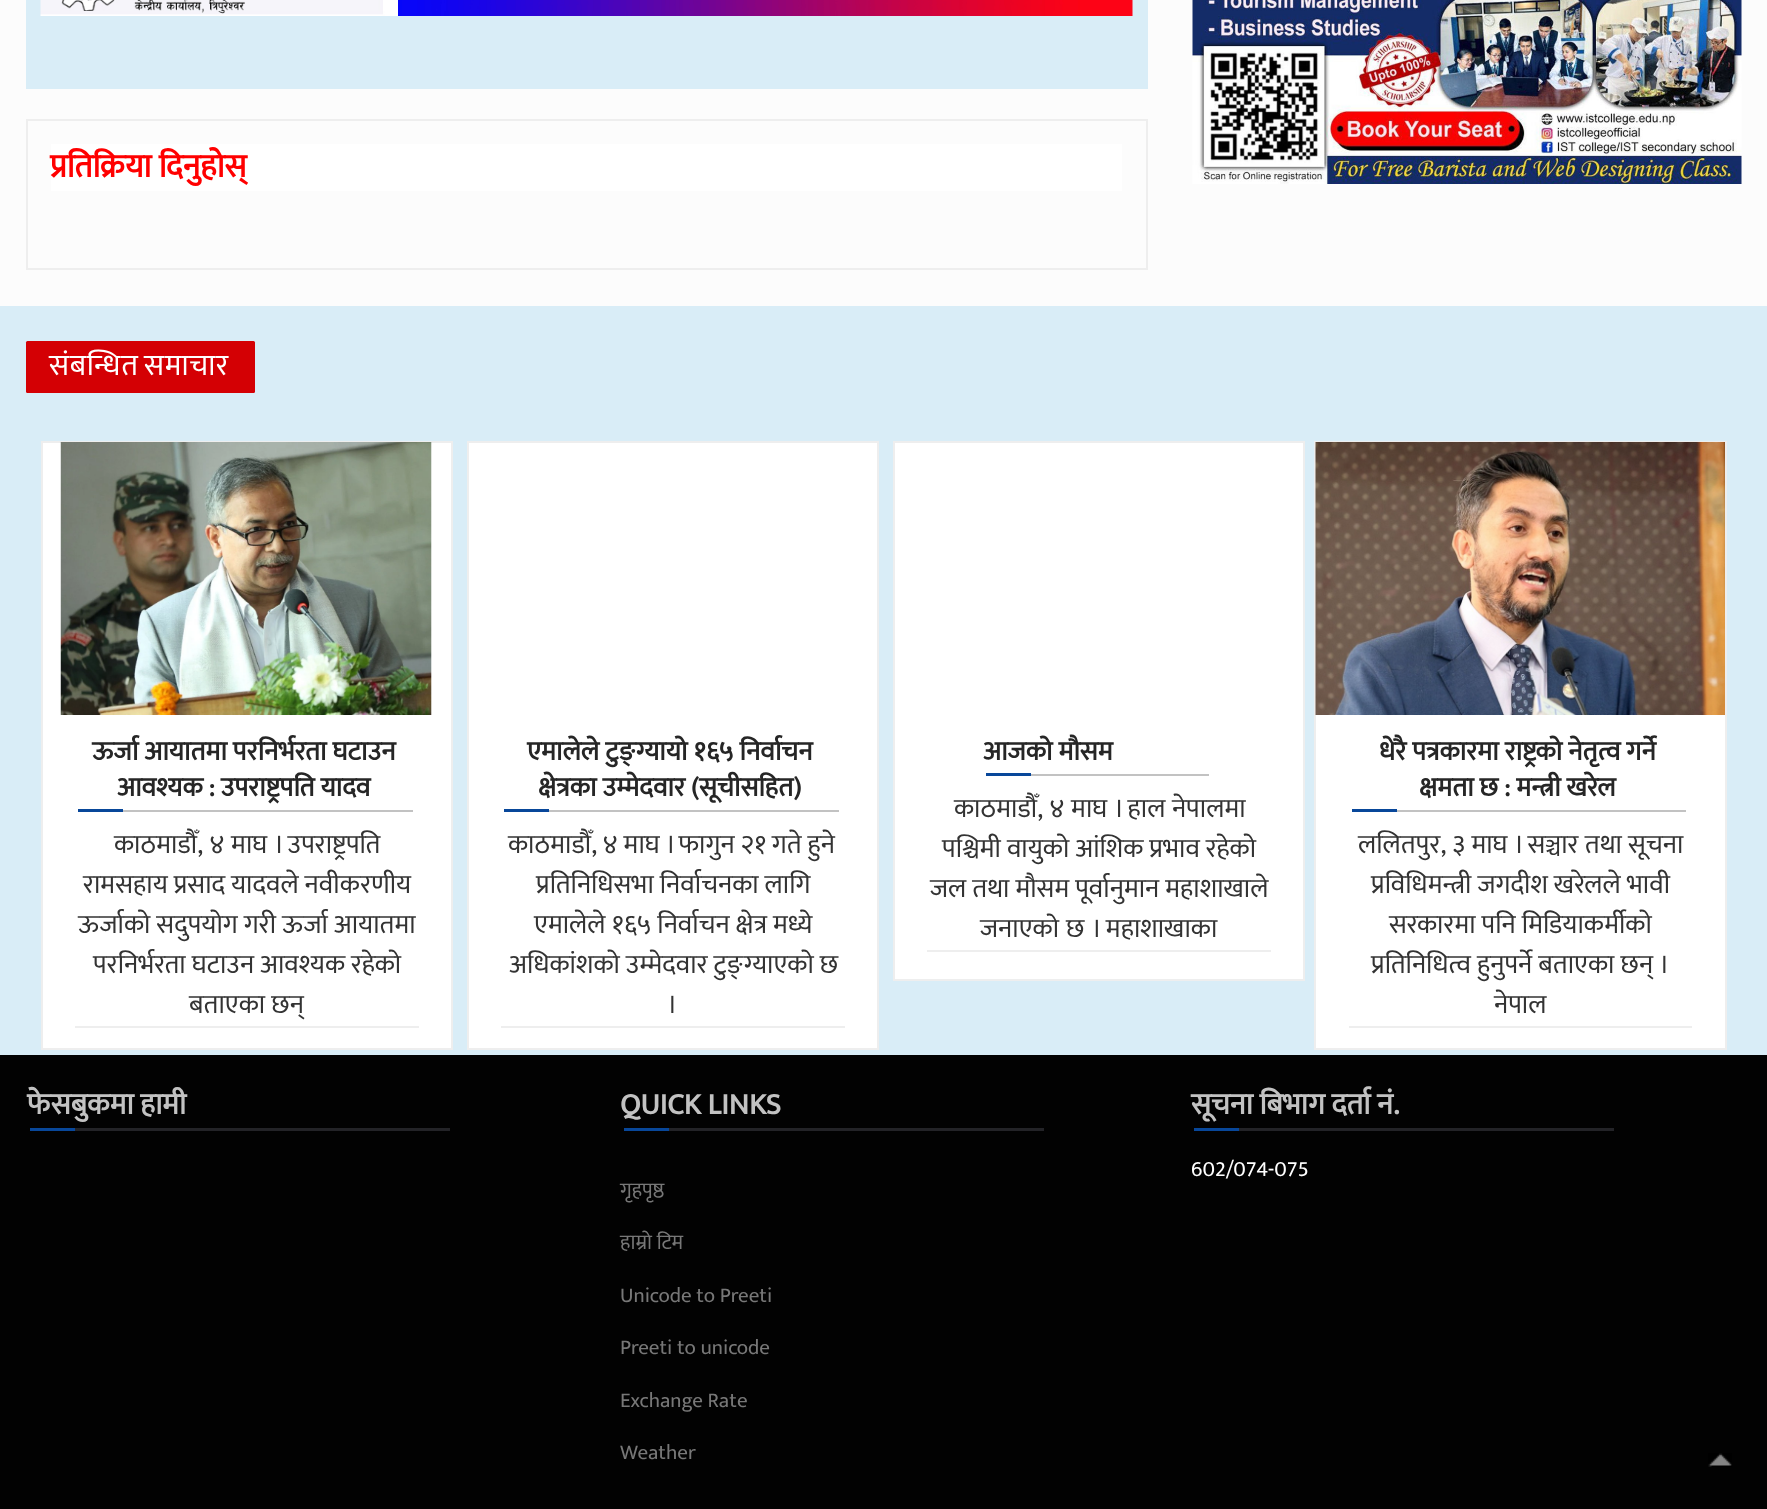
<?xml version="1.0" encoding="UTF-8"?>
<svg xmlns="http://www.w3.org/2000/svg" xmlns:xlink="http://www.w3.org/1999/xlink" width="1767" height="1509">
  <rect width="100%" height="100%" fill="#fcfcfc" />
  <rect x="26" width="1122" height="89" fill="#d9edf7" />
  <image x="40" y="0" width="1093" height="16" xlink:href="image1.png" />
  <rect x="27" y="120" width="1120" height="149" fill="none" stroke="#eeeeee" stroke-width="2" />
  <rect x="51" y="144" width="1071" height="47" fill="#ffffff" />
  <image x="1192" y="0" width="550" height="184" xlink:href="image2.png" />
  <rect y="306" width="1767" height="749" fill="#d9edf7" />
  <rect x="26" y="341" width="229" height="52" rx="1.5" fill="#d40004" />
  <rect x="42" y="442" width="410" height="607" fill="#ffffff" stroke="#eeeeee" stroke-width="2" />
  <image x="60" y="442" width="372" height="273" xlink:href="image3.png" />
  <rect x="78" y="809" width="45" height="3" fill="#08479a" />
  <rect x="123" y="810" width="290" height="2" fill="#c2c2c2" />
  <rect x="75" y="1026" width="344" height="2" fill="#eeeeee" />
  <rect x="468" y="442" width="410" height="607" fill="#ffffff" stroke="#eeeeee" stroke-width="2" />
  <rect x="504" y="809" width="45" height="3" fill="#08479a" />
  <rect x="549" y="810" width="290" height="2" fill="#c2c2c2" />
  <rect x="501" y="1026" width="344" height="2" fill="#eeeeee" />
  <rect x="894" y="442" width="410" height="538" fill="#ffffff" stroke="#eeeeee" stroke-width="2" />
  <rect x="986" y="773" width="45" height="3" fill="#08479a" />
  <rect x="1031" y="774" width="178" height="2" fill="#c2c2c2" />
  <rect x="927" y="950" width="344" height="2" fill="#eeeeee" />
  <rect x="1316" y="715" width="409" height="333" fill="#ffffff" />
  <rect x="1315" y="442" width="411" height="607" fill="none" stroke="#eeeeee" stroke-width="2" />
  <image x="1315" y="442" width="410" height="273" xlink:href="image4.png" />
  <rect x="1352" y="809" width="45" height="3" fill="#08479a" />
  <rect x="1397" y="810" width="289" height="2" fill="#c2c2c2" />
  <rect x="1349" y="1026" width="343" height="2" fill="#eeeeee" />
  <rect y="1055" width="1767" height="454" fill="#020202" />
  <rect x="30" y="1128" width="45" height="3" fill="#08479a" />
  <rect x="75" y="1128" width="375" height="3" fill="#232327" />
  <rect x="624" y="1128" width="45" height="3" fill="#08479a" />
  <rect x="669" y="1128" width="375" height="3" fill="#232327" />
  <rect x="1194" y="1128" width="45" height="3" fill="#08479a" />
  <rect x="1239" y="1128" width="375" height="3" fill="#232327" />
  <image x="1708" y="1453" width="24" height="14" xlink:href="image5.png" />
  <text x="50" y="177" style="font-family: Mukta; font-size: 33px; font-weight: bold; fill: #ff0000">प्रतिक्रिया दिनुहोस्</text>
  <text x="49" y="375" word-spacing="-2" style="font-family: Mukta; font-size: 30px; letter-spacing: 0.75px; fill: #ffffff">संबन्धित समाचार</text>
  <text x="92" y="760" style="font-family: Mukta; font-size: 27px; font-weight: bold; fill: #262626">ऊर्जा आयातमा परनिर्भरता घटाउन</text>
  <text x="117" y="796" style="font-family: Mukta; font-size: 27px; font-weight: bold; fill: #262626">आवश्यक : उपराष्ट्रपति यादव</text>
  <text x="114" y="853" word-spacing="0.5" style="font-family: Mukta; font-size: 26.75px; fill: #333333">काठमाडौँ, ४ माघ । उपराष्ट्रपति</text>
  <text x="83" y="893" style="font-family: Mukta; font-size: 26.75px; fill: #333333">रामसहाय प्रसाद यादवले नवीकरणीय</text>
  <text x="78" y="933" style="font-family: Mukta; font-size: 26.75px; fill: #333333">ऊर्जाको सदुपयोग गरी ऊर्जा आयातमा</text>
  <text x="93" y="973" style="font-family: Mukta; font-size: 26.75px; fill: #333333">परनिर्भरता घटाउन आवश्यक रहेको</text>
  <text x="189" y="1013" style="font-family: Mukta; font-size: 26.75px; fill: #333333">बताएका छन्</text>
  <text x="527" y="760" style="font-family: Mukta; font-size: 27px; font-weight: bold; fill: #262626">एमालेले टुङ्ग्यायो १६५ निर्वाचन</text>
  <text x="538" y="796" style="font-family: Mukta; font-size: 27px; font-weight: bold; fill: #262626">क्षेत्रका उम्मेदवार (सूचीसहित)</text>
  <text x="508" y="853" word-spacing="-0.25" style="font-family: Mukta; font-size: 26.75px; fill: #333333">काठमाडौँ, ४ माघ । फागुन २१ गते हुने</text>
  <text x="536" y="893" style="font-family: Mukta; font-size: 26.75px; fill: #333333">प्रतिनिधिसभा निर्वाचनका लागि</text>
  <text x="534" y="933" style="font-family: Mukta; font-size: 26.75px; fill: #333333">एमालेले १६५ निर्वाचन क्षेत्र मध्ये</text>
  <text x="509" y="973" style="font-family: Mukta; font-size: 26.75px; fill: #333333">अधिकांशको उम्मेदवार टुङ्ग्याएको छ</text>
  <text x="667" y="1013" style="font-family: Mukta; font-size: 26.75px; fill: #333333">।</text>
  <text x="983" y="760" style="font-family: Mukta; font-size: 27px; font-weight: bold; fill: #262626">आजको मौसम</text>
  <text x="954" y="817" word-spacing="0.5" style="font-family: Mukta; font-size: 26.75px; fill: #333333">काठमाडौँ, ४ माघ । हाल नेपालमा</text>
  <text x="942" y="857" style="font-family: Mukta; font-size: 26.75px; fill: #333333">पश्चिमी वायुको आंशिक प्रभाव रहेको</text>
  <text x="930" y="897" style="font-family: Mukta; font-size: 26.75px; fill: #333333">जल तथा मौसम पूर्वानुमान महाशाखाले</text>
  <text x="980" y="937" word-spacing="1" style="font-family: Mukta; font-size: 26.75px; fill: #333333">जनाएको छ । महाशाखाका</text>
  <text x="1379" y="760" style="font-family: Mukta; font-size: 27px; font-weight: bold; fill: #262626">धेरै पत्रकारमा राष्ट्रको नेतृत्व गर्ने</text>
  <text x="1419" y="796" style="font-family: Mukta; font-size: 27px; font-weight: bold; fill: #262626">क्षमता छ : मन्त्री खरेल</text>
  <text x="1358" y="853" word-spacing="0.25" style="font-family: Mukta; font-size: 26.75px; fill: #333333">ललितपुर, ३ माघ । सञ्चार तथा सूचना</text>
  <text x="1371" y="893" style="font-family: Mukta; font-size: 26.75px; fill: #333333">प्रविधिमन्त्री जगदीश खरेलले भावी</text>
  <text x="1389" y="933" style="font-family: Mukta; font-size: 26.75px; fill: #333333">सरकारमा पनि मिडियाकर्मीको</text>
  <text x="1371" y="973" style="font-family: Mukta; font-size: 26.75px; fill: #333333">प्रतिनिधित्व हुनुपर्ने बताएका छन् ।</text>
  <text x="1494" y="1013" style="font-family: Mukta; font-size: 26.75px; fill: #333333">नेपाल</text>
  <text x="27" y="1114" style="font-family: Mukta; font-size: 30px; font-weight: bold; fill: #c2c2c2">फेसबुकमा हामी</text>
  <text x="620" y="1114" style="font-family: Mukta; font-size: 30px; font-weight: bold; fill: #c2c2c2">QUICK LINKS</text>
  <text x="620" y="1197" style="font-family: Mukta; font-size: 21px; fill: #777777">गृहपृष्ठ</text>
  <text x="620" y="1249" style="font-family: Mukta; font-size: 21px; fill: #777777">हाम्रो टिम</text>
  <text x="620" y="1302" style="font-family: Mukta; font-size: 21px; fill: #777777">Unicode to Preeti</text>
  <text x="620" y="1354" style="font-family: Mukta; font-size: 21px; fill: #777777">Preeti to unicode</text>
  <text x="620" y="1407" style="font-family: Mukta; font-size: 21px; fill: #777777">Exchange Rate</text>
  <text x="620" y="1459" style="font-family: Mukta; font-size: 21px; fill: #777777">Weather</text>
  <text x="1191" y="1114" style="font-family: Mukta; font-size: 30px; font-weight: bold; fill: #c2c2c2">सूचना बिभाग दर्ता नं.</text>
  <text x="1191" y="1176" style="font-family: Mukta; font-size: 21.75px; fill: #ffffff">602/074-075</text>
</svg>
